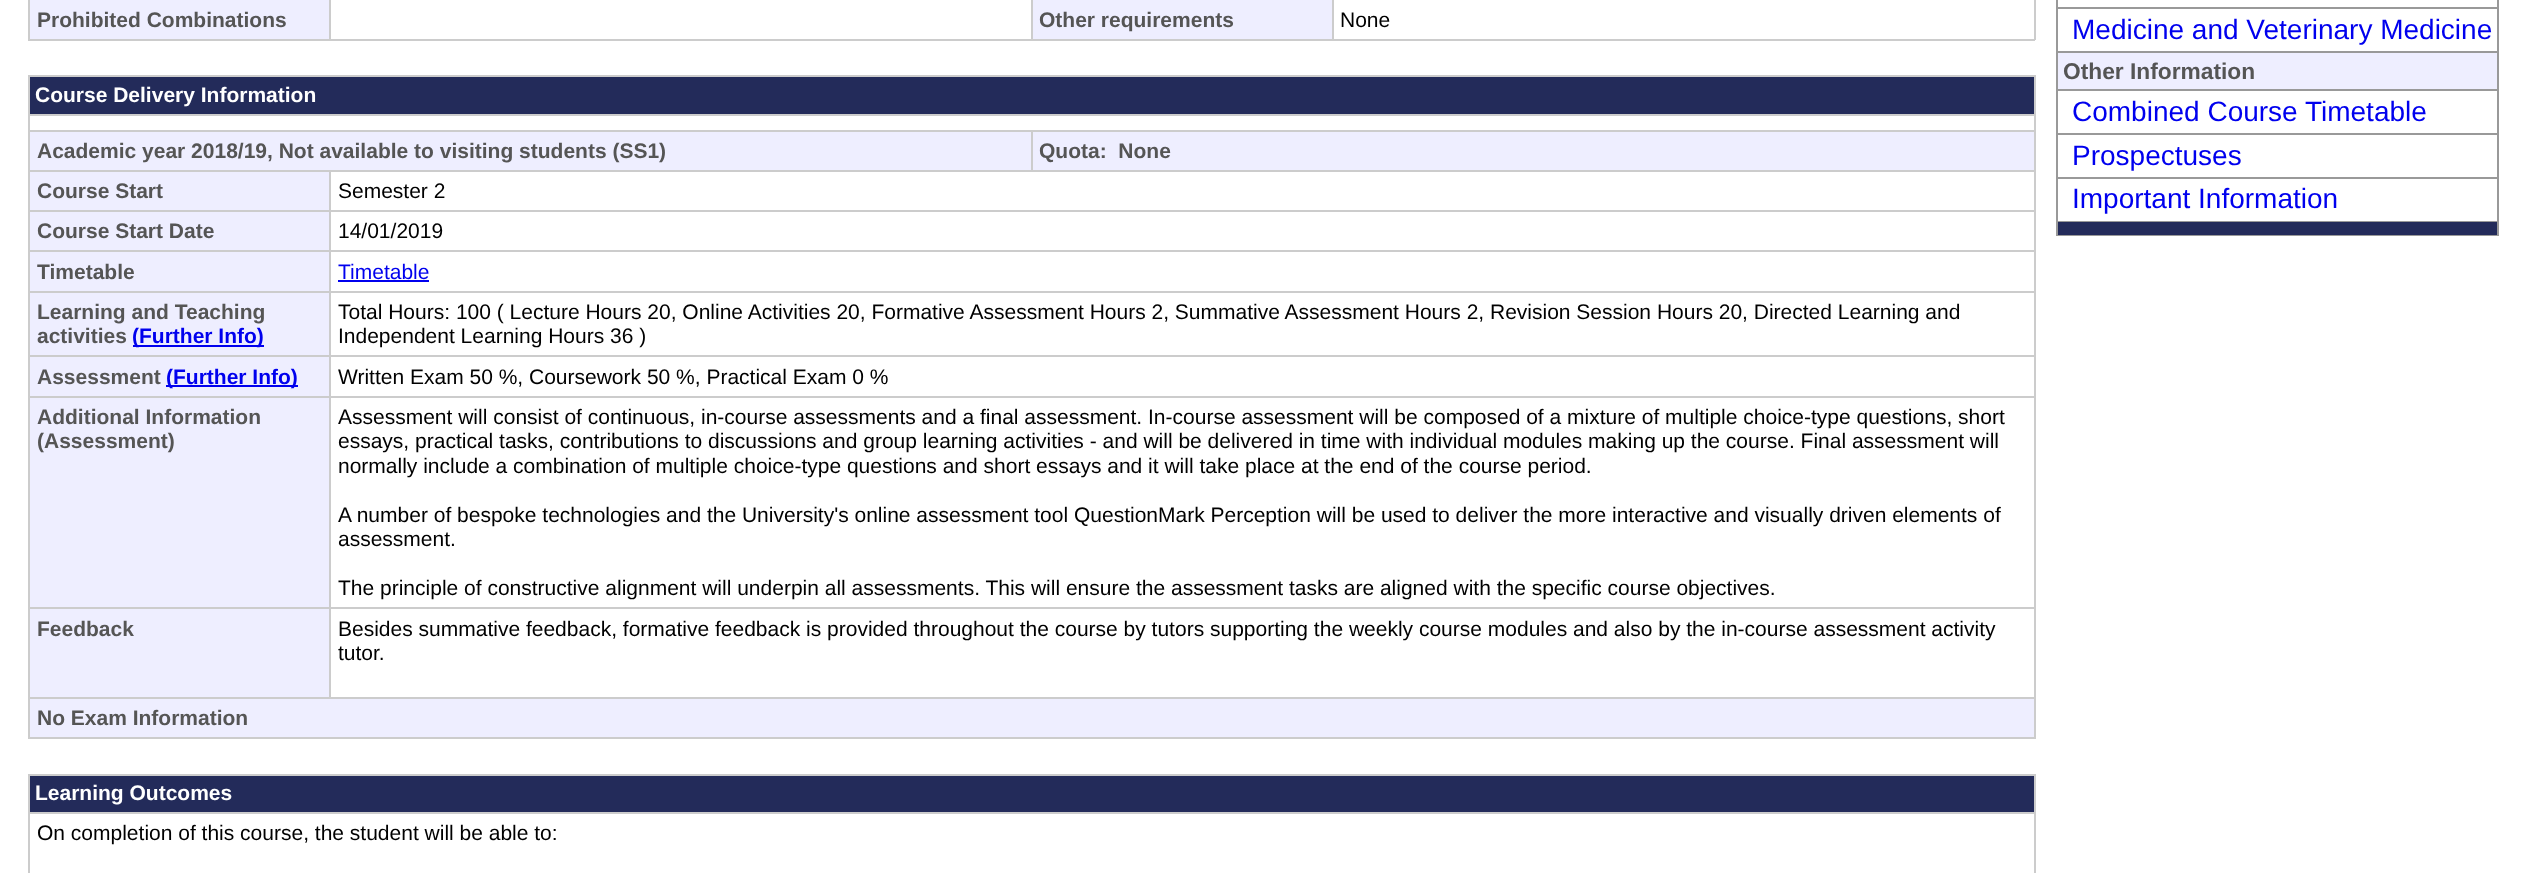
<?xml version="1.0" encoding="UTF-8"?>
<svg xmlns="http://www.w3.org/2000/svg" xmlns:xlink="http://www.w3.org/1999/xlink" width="2526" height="873">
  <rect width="100%" height="100%" fill="#ffffff" />
  <rect x="2034" width="2" height="40" fill="#cccccc" />
  <rect x="28" y="39" width="2007" height="2" fill="#cccccc" />
  <rect x="28" width="2" height="40" fill="#cccccc" />
  <rect x="30" width="299" height="39" fill="#eeeeff" />
  <rect x="329" width="2" height="40" fill="#cccccc" />
  <rect x="1033" width="299" height="39" fill="#eeeeff" />
  <rect x="1031" width="2" height="40" fill="#cccccc" />
  <rect x="1332" width="2" height="40" fill="#cccccc" />
  <rect x="28" y="75" width="2007" height="2" fill="#cccccc" />
  <rect x="2034" y="75" width="2" height="664" fill="#cccccc" />
  <rect x="28" y="737" width="2007" height="2" fill="#cccccc" />
  <rect x="28" y="75" width="2" height="664" fill="#cccccc" />
  <rect x="30" y="77" width="2004" height="37" fill="#232b5a" />
  <rect x="28" y="114" width="2007" height="2" fill="#cccccc" />
  <rect x="30" y="132" width="1001" height="38" fill="#eeeeff" />
  <rect x="1031" y="130" width="1004" height="2" fill="#cccccc" />
  <rect x="329" y="170" width="1706" height="2" fill="#cccccc" />
  <rect x="1031" y="130" width="2" height="42" fill="#cccccc" />
  <rect x="28" y="130" width="1005" height="2" fill="#cccccc" />
  <rect x="1033" y="132" width="1001" height="38" fill="#eeeeff" />
  <rect x="30" y="172" width="299" height="38" fill="#eeeeff" />
  <rect x="329" y="210" width="1706" height="2" fill="#cccccc" />
  <rect x="329" y="250" width="1706" height="2" fill="#cccccc" />
  <rect x="329" y="291" width="1706" height="2" fill="#cccccc" />
  <rect x="329" y="355" width="1706" height="2" fill="#cccccc" />
  <rect x="329" y="396" width="1706" height="2" fill="#cccccc" />
  <rect x="329" y="607" width="1706" height="2" fill="#cccccc" />
  <rect x="28" y="697" width="2007" height="2" fill="#cccccc" />
  <rect x="329" y="607" width="2" height="91" fill="#cccccc" />
  <rect x="28" y="607" width="303" height="2" fill="#cccccc" />
  <rect x="329" y="396" width="2" height="213" fill="#cccccc" />
  <rect x="28" y="396" width="303" height="2" fill="#cccccc" />
  <rect x="329" y="355" width="2" height="42" fill="#cccccc" />
  <rect x="28" y="355" width="303" height="2" fill="#cccccc" />
  <rect x="329" y="291" width="2" height="66" fill="#cccccc" />
  <rect x="28" y="291" width="303" height="2" fill="#cccccc" />
  <rect x="329" y="250" width="2" height="42" fill="#cccccc" />
  <rect x="28" y="250" width="303" height="2" fill="#cccccc" />
  <rect x="329" y="210" width="2" height="42" fill="#cccccc" />
  <rect x="28" y="210" width="303" height="2" fill="#cccccc" />
  <rect x="329" y="170" width="2" height="42" fill="#cccccc" />
  <rect x="28" y="170" width="303" height="2" fill="#cccccc" />
  <rect x="30" y="212" width="299" height="38" fill="#eeeeff" />
  <rect x="30" y="252" width="299" height="39" fill="#eeeeff" />
  <rect x="338" y="280" width="91" height="2" fill="#0000ee" />
  <rect x="30" y="293" width="299" height="62" fill="#eeeeff" />
  <rect x="133" y="345" width="131" height="2" fill="#0000ee" />
  <rect x="30" y="357" width="299" height="39" fill="#eeeeff" />
  <rect x="166" y="385" width="132" height="2" fill="#0000ee" />
  <rect x="30" y="398" width="299" height="209" fill="#eeeeff" />
  <rect x="30" y="609" width="299" height="88" fill="#eeeeff" />
  <rect x="30" y="699" width="2004" height="38" fill="#eeeeff" />
  <rect x="28" y="774" width="2007" height="2" fill="#cccccc" />
  <rect x="2034" y="774" width="2" height="99" fill="#cccccc" />
  <rect x="28" y="774" width="2" height="99" fill="#cccccc" />
  <rect x="30" y="776" width="2004" height="36" fill="#232b5a" />
  <rect x="28" y="812" width="2007" height="2" fill="#cccccc" />
  <rect x="2056" width="443" height="236" fill="#999999" />
  <rect x="2058" width="439" height="7" fill="#ffffff" />
  <rect x="2058" y="9" width="439" height="42" fill="#ffffff" />
  <rect x="2058" y="53" width="439" height="36" fill="#eeeeff" />
  <rect x="2058" y="91" width="439" height="42" fill="#ffffff" />
  <rect x="2058" y="135" width="439" height="42" fill="#ffffff" />
  <rect x="2058" y="179" width="439" height="42" fill="#ffffff" />
  <rect x="2058" y="222" width="439" height="13" fill="#232b5a" />
  <text x="37" y="27" style="font-family: Liberation Sans; font-size: 21px; font-weight: bold; fill: #555555">Prohibited Combinations</text>
  <text x="1039" y="27" style="font-family: Liberation Sans; font-size: 21px; font-weight: bold; fill: #555555">Other requirements</text>
  <text x="1340" y="27" style="font-family: Liberation Sans; font-size: 21px; fill: #000000">None</text>
  <text x="35" y="102" style="font-family: Liberation Sans; font-size: 21px; font-weight: bold; fill: #ffffff">Course Delivery Information</text>
  <text x="37" y="158" style="font-family: Liberation Sans; font-size: 21px; font-weight: bold; fill: #555555">Academic year 2018/19, Not available to visiting students (SS1)</text>
  <text x="1039" y="158" style="font-family: Liberation Sans; font-size: 21px; font-weight: bold; fill: #555555" xml:space="preserve">Quota:  None</text>
  <text x="37" y="198" style="font-family: Liberation Sans; font-size: 21px; font-weight: bold; fill: #555555">Course Start</text>
  <text x="338" y="198" style="font-family: Liberation Sans; font-size: 21px; fill: #000000">Semester 2</text>
  <text x="37" y="238" style="font-family: Liberation Sans; font-size: 21px; font-weight: bold; fill: #555555">Course Start Date</text>
  <text x="338" y="238" style="font-family: Liberation Sans; font-size: 21px; fill: #000000">14/01/2019</text>
  <text x="37" y="279" style="font-family: Liberation Sans; font-size: 21px; font-weight: bold; fill: #555555">Timetable</text>
  <text x="338" y="279" style="font-family: Liberation Sans; font-size: 21px; fill: #0000ee">Timetable</text>
  <text x="37" y="319" style="font-family: Liberation Sans; font-size: 21px; font-weight: bold; fill: #555555">Learning and Teaching</text>
  <text x="37" y="343" style="font-family: Liberation Sans; font-size: 21px; font-weight: bold; fill: #555555">activities</text>
  <text x="132" y="343" style="font-family: Liberation Sans; font-size: 21px; font-weight: bold; fill: #0000ee">(Further Info)</text>
  <text x="338" y="319" style="font-family: Liberation Sans; font-size: 21px; fill: #000000">Total Hours: 100 ( Lecture Hours 20, Online Activities 20, Formative Assessment Hours 2, Summative Assessment Hours 2, Revision Session Hours 20, Directed Learning and</text>
  <text x="338" y="343" style="font-family: Liberation Sans; font-size: 21px; fill: #000000">Independent Learning Hours 36 )</text>
  <text x="37" y="384" style="font-family: Liberation Sans; font-size: 21px; font-weight: bold; fill: #555555">Assessment</text>
  <text x="166" y="384" style="font-family: Liberation Sans; font-size: 21px; font-weight: bold; fill: #0000ee">(Further Info)</text>
  <text x="338" y="384" style="font-family: Liberation Sans; font-size: 21px; fill: #000000">Written Exam 50 %, Coursework 50 %, Practical Exam 0 %</text>
  <text x="37" y="424" style="font-family: Liberation Sans; font-size: 21px; font-weight: bold; fill: #555555">Additional Information</text>
  <text x="37" y="448" style="font-family: Liberation Sans; font-size: 21px; font-weight: bold; fill: #555555">(Assessment)</text>
  <text x="338" y="424" style="font-family: Liberation Sans; font-size: 21px; fill: #000000">Assessment will consist of continuous, in-course assessments and a final assessment. In-course assessment will be composed of a mixture of multiple choice-type questions, short</text>
  <text x="338" y="448" style="font-family: Liberation Sans; font-size: 21px; fill: #000000">essays, practical tasks, contributions to discussions and group learning activities - and will be delivered in time with individual modules making up the course. Final assessment will</text>
  <text x="338" y="473" style="font-family: Liberation Sans; font-size: 21px; fill: #000000">normally include a combination of multiple choice-type questions and short essays and it will take place at the end of the course period.</text>
  <text x="338" y="522" style="font-family: Liberation Sans; font-size: 21px; fill: #000000">A number of bespoke technologies and the University's online assessment tool QuestionMark Perception will be used to deliver the more interactive and visually driven elements of</text>
  <text x="338" y="546" style="font-family: Liberation Sans; font-size: 21px; fill: #000000">assessment.</text>
  <text x="338" y="595" style="font-family: Liberation Sans; font-size: 21px; fill: #000000">The principle of constructive alignment will underpin all assessments. This will ensure the assessment tasks are aligned with the specific course objectives.</text>
  <text x="37" y="636" style="font-family: Liberation Sans; font-size: 21px; font-weight: bold; fill: #555555">Feedback</text>
  <text x="338" y="636" style="font-family: Liberation Sans; font-size: 21px; fill: #000000">Besides summative feedback, formative feedback is provided throughout the course by tutors supporting the weekly course modules and also by the in-course assessment activity</text>
  <text x="338" y="660" style="font-family: Liberation Sans; font-size: 21px; fill: #000000">tutor.</text>
  <text x="37" y="725" style="font-family: Liberation Sans; font-size: 21px; font-weight: bold; fill: #555555">No Exam Information</text>
  <text x="35" y="800" style="font-family: Liberation Sans; font-size: 21px; font-weight: bold; fill: #ffffff">Learning Outcomes</text>
  <text x="37" y="840" style="font-family: Liberation Sans; font-size: 21px; fill: #000000">On completion of this course, the student will be able to:</text>
  <text x="2072" y="39" style="font-family: Liberation Sans; font-size: 28px; fill: #0000ee">Medicine and Veterinary Medicine</text>
  <text x="2063" y="79" style="font-family: Liberation Sans; font-size: 22.75px; font-weight: bold; fill: #555555">Other Information</text>
  <text x="2072" y="121" style="font-family: Liberation Sans; font-size: 28px; fill: #0000ee">Combined Course Timetable</text>
  <text x="2072" y="165" style="font-family: Liberation Sans; font-size: 28px; fill: #0000ee">Prospectuses</text>
  <text x="2072" y="208" style="font-family: Liberation Sans; font-size: 28px; fill: #0000ee">Important Information</text>
</svg>
